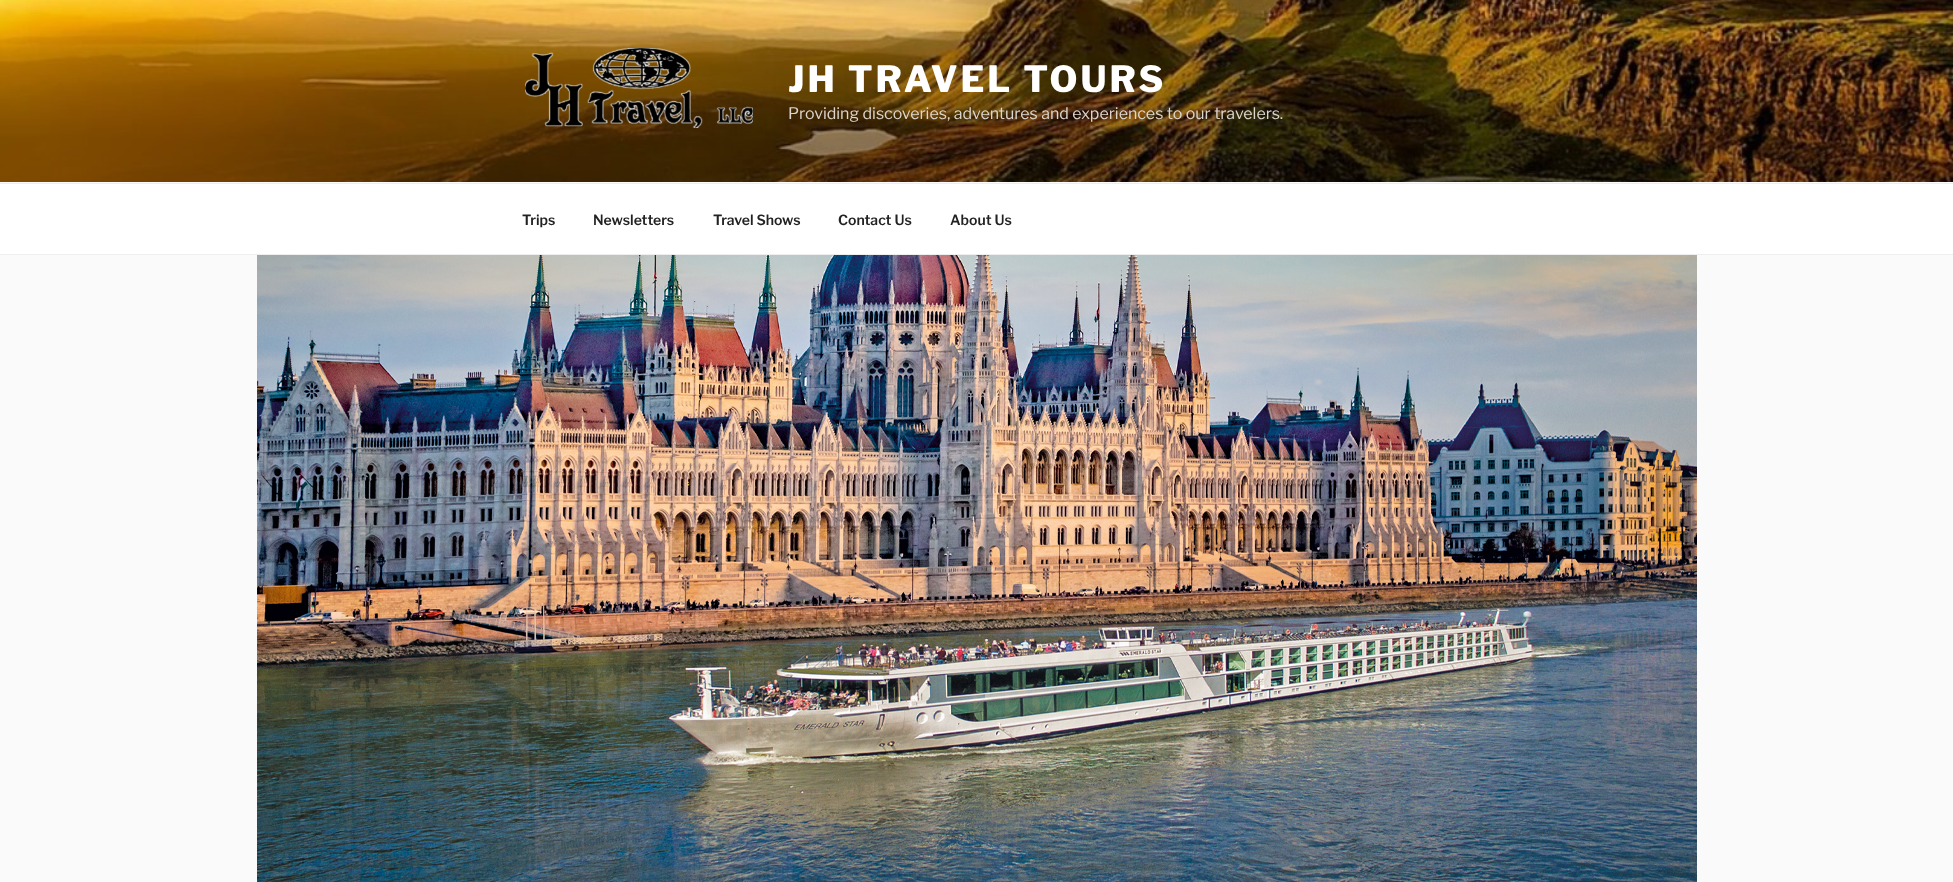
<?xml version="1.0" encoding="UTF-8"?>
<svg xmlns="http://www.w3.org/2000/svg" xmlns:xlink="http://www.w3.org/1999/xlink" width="1953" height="882">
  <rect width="100%" height="100%" fill="#fafafa" />
  <image x="0" y="0" width="1953" height="182" xlink:href="image1.png" />
  <image x="525" y="48" width="228" height="80" xlink:href="image2.png" />
  <rect y="184" width="1953" height="70" fill="#ffffff" />
  <rect y="183" width="1953" height="1" fill="#eeeeee" />
  <rect y="254" width="1953" height="1" fill="#eeeeee" />
  <image x="257" y="255" width="1440" height="627" xlink:href="image3.png" />
  <text x="788" y="92" style="font-family: Libre Franklin; font-size: 36px; font-weight: 100; letter-spacing: 2.9px; fill: #ffffff">JH TRAVEL TOURS</text>
  <text x="788" y="119" style="font-family: 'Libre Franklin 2'; font-size: 16px; font-weight: 100; fill: #dbd6ce">Providing discoveries, adventures and experiences to our travelers.</text>
  <text x="522" y="225" style="font-family: 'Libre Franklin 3'; font-size: 14px; font-weight: 100; fill: #222222">Trips</text>
  <text x="593" y="225" style="font-family: 'Libre Franklin 3'; font-size: 14px; font-weight: 100; fill: #222222">Newsletters</text>
  <text x="713" y="225" style="font-family: 'Libre Franklin 3'; font-size: 14px; font-weight: 100; fill: #222222">Travel Shows</text>
  <text x="838" y="225" style="font-family: 'Libre Franklin 3'; font-size: 14px; font-weight: 100; fill: #222222">Contact Us</text>
  <text x="950" y="225" style="font-family: 'Libre Franklin 3'; font-size: 14px; font-weight: 100; fill: #222222">About Us</text>
</svg>
